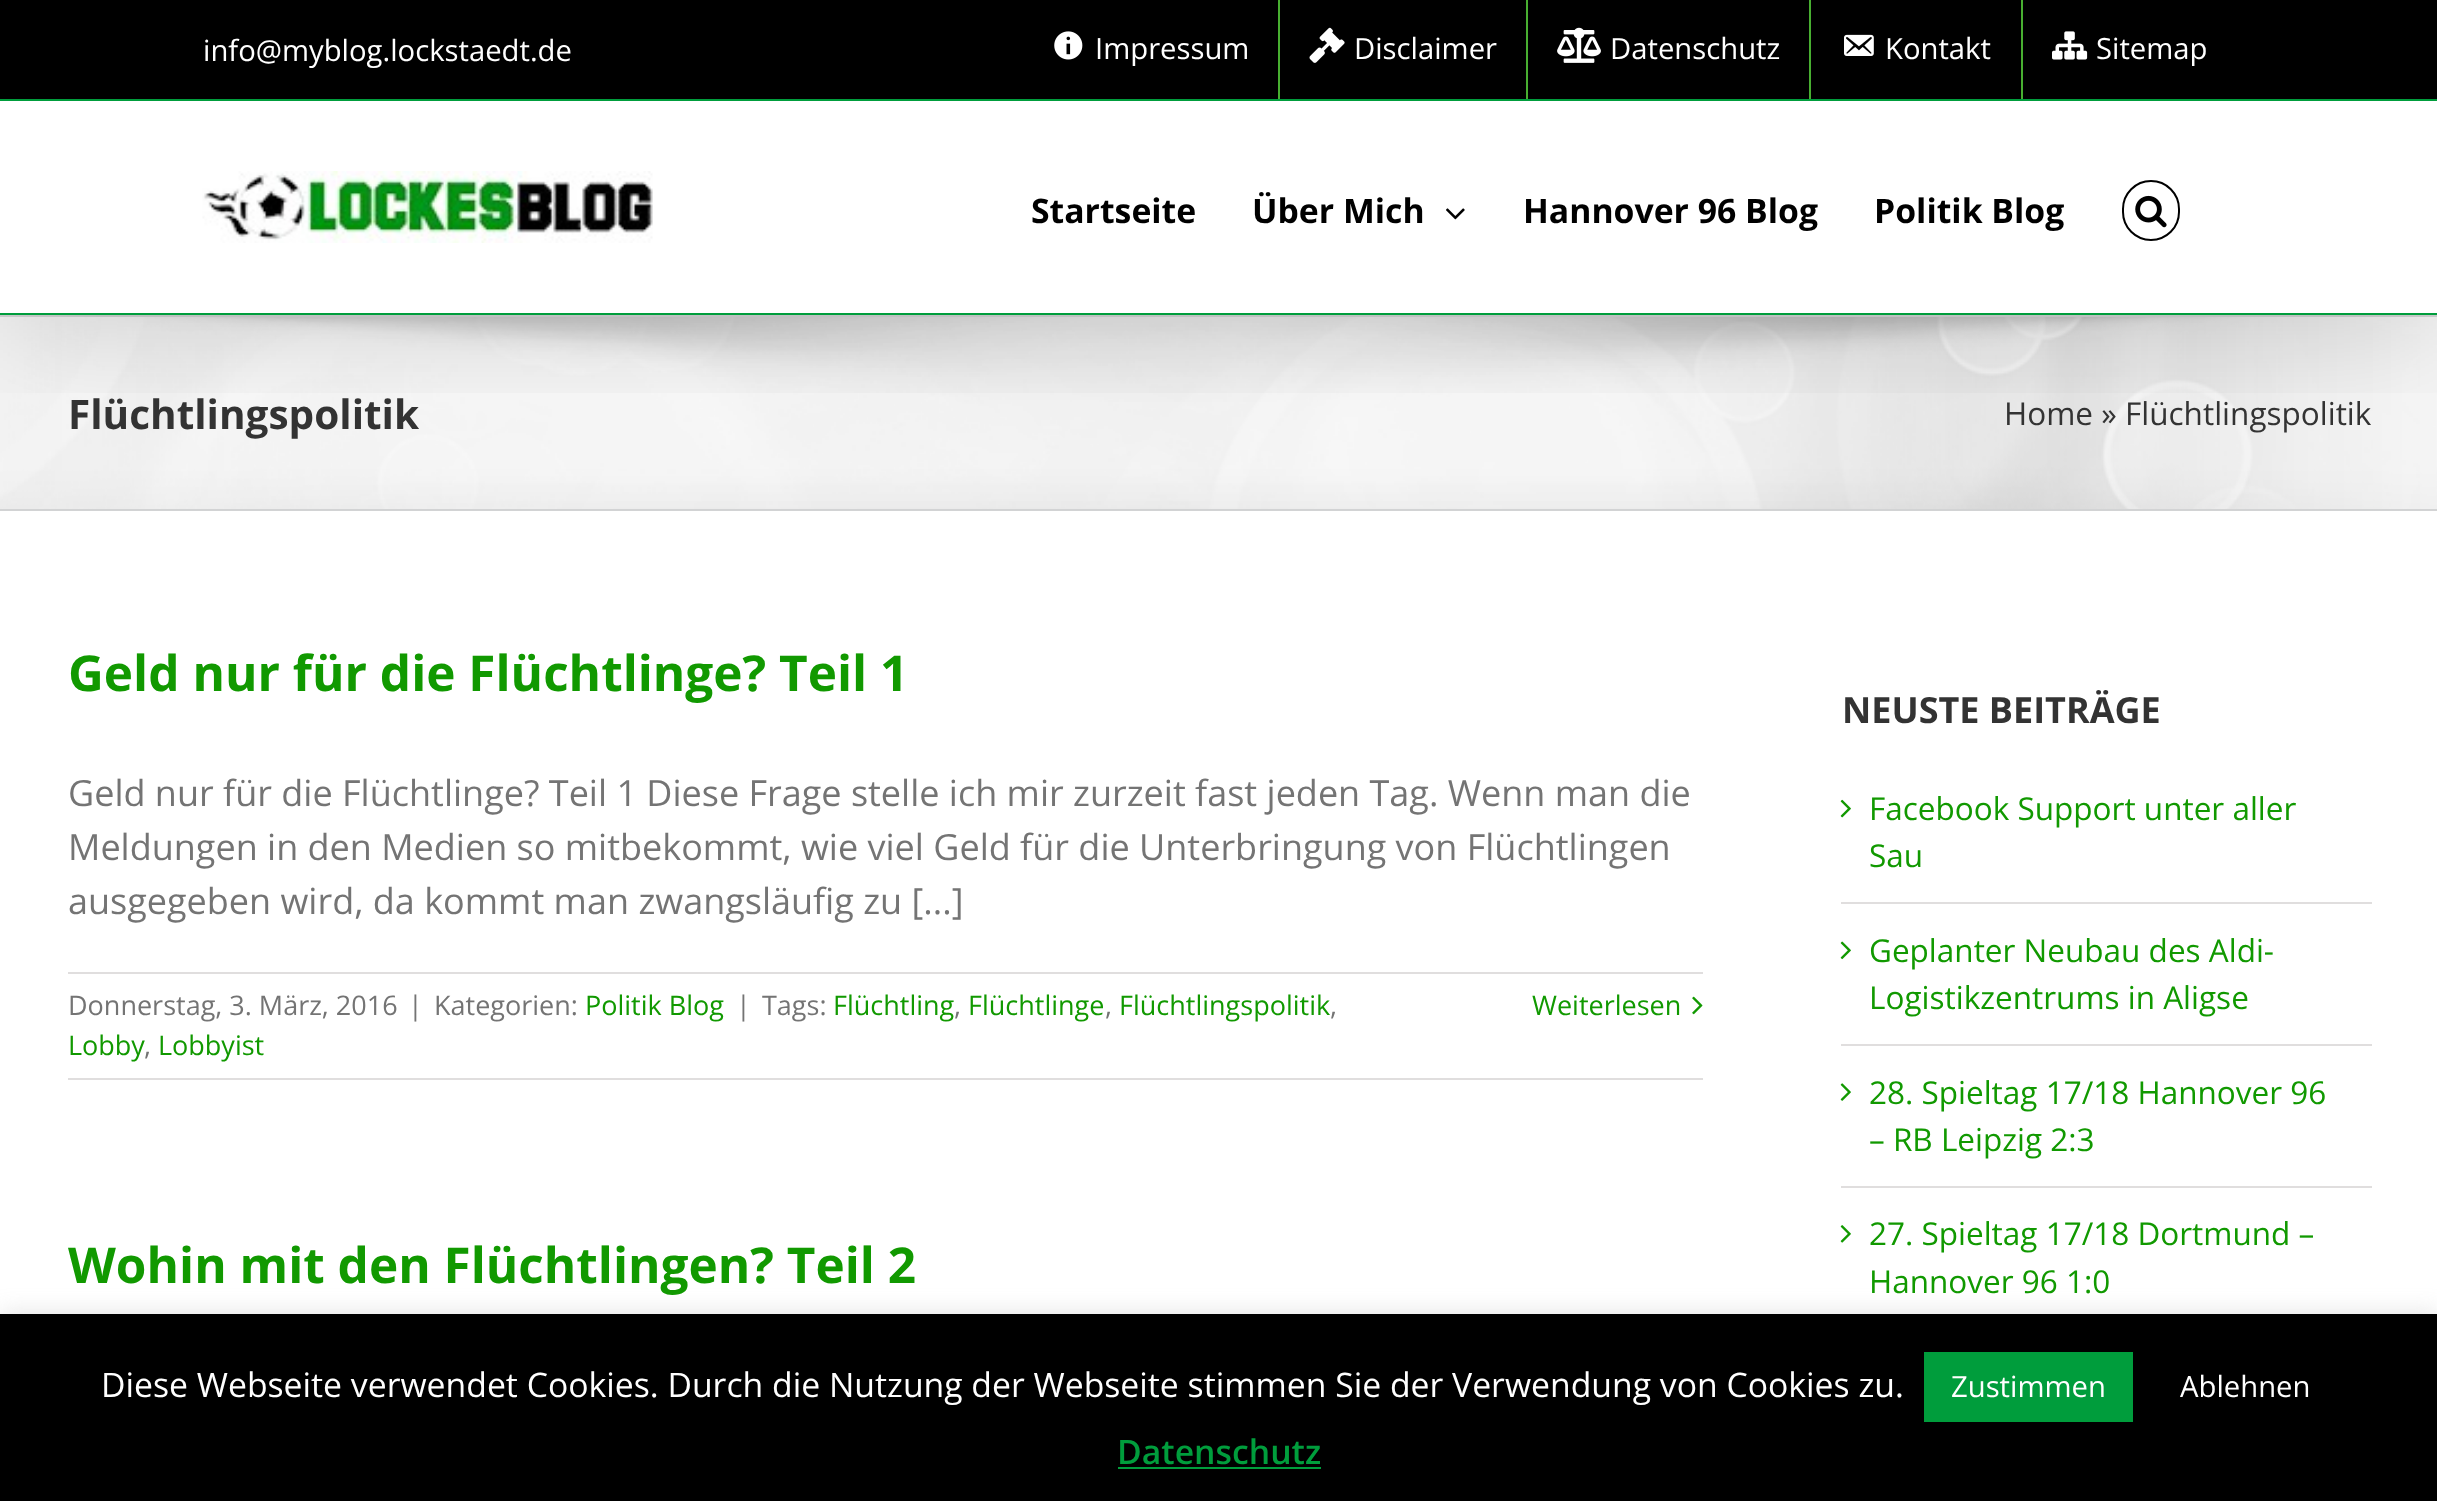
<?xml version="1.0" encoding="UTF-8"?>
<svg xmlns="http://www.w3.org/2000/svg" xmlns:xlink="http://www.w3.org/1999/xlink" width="2437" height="1501">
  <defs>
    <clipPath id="clip1"><rect x="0" y="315" width="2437" height="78" /></clipPath>
  </defs>
  <rect width="100%" height="100%" fill="#ffffff" />
  <rect y="317" width="2437" height="192" fill="#f6f6f6" />
  <image x="0" y="317" width="2437" height="192" xlink:href="image9.png" />
  <rect y="315" width="2437" height="2" fill="#d2d3d4" />
  <g clip-path="url(#clip1)">
    <rect x="5" y="27" width="2430" height="306" fill="#000000" fill-opacity="0.14" filter="blur(56px)" />
  </g>
  <rect width="2437" height="99" fill="#000000" />
  <rect y="99" width="2437" height="2" fill="#009d3c" />
  <image x="1054" y="31" width="29" height="29" xlink:href="image1.png" />
  <rect x="1278" width="2" height="99" fill="#48af31" />
  <image x="1309" y="27" width="36" height="36" xlink:href="image2.png" />
  <rect x="1526" width="2" height="99" fill="#48af31" />
  <image x="1557" y="27" width="44" height="36" xlink:href="image3.png" />
  <rect x="1809" width="2" height="99" fill="#48af31" />
  <image x="1844" y="34" width="30" height="22" xlink:href="image4.png" />
  <rect x="2021" width="2" height="99" fill="#48af31" />
  <image x="2052" y="31" width="36" height="29" xlink:href="image5.png" />
  <rect y="313" width="2437" height="2" fill="#009d3c" />
  <image x="202" y="171" width="451" height="72" xlink:href="image6.png" />
  <image x="1446" y="208" width="19" height="12" xlink:href="image7.png" />
  <rect x="2123" y="181" width="56" height="59" rx="28" fill="none" stroke="#000000" stroke-width="2" />
  <image x="2135" y="195" width="32" height="33" xlink:href="image8.png" />
  <rect y="509" width="2437" height="2" fill="#d2d3d4" />
  <rect x="68" y="972" width="1635" height="2" fill="#e0dede" />
  <rect x="68" y="1078" width="1635" height="2" fill="#e0dede" />
  <image x="1692" y="996" width="11" height="19" xlink:href="image10.png" />
  <rect x="1841" y="902" width="531" height="2" fill="#e0dede" />
  <image x="1840" y="799" width="11" height="19" xlink:href="image11.png" />
  <rect x="1841" y="1044" width="531" height="2" fill="#e0dede" />
  <image x="1840" y="941" width="11" height="19" xlink:href="image12.png" />
  <rect x="1841" y="1186" width="531" height="2" fill="#e0dede" />
  <image x="1840" y="1083" width="11" height="18" xlink:href="image13.png" />
  <image x="1840" y="1225" width="11" height="18" xlink:href="image14.png" />
  <rect y="1312" width="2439" height="189" fill="#acabab" fill-opacity="0.3" filter="blur(11px)" />
  <rect y="1314" width="2437" height="187" fill="#000000" />
  <rect x="1924" y="1352" width="209" height="70" fill="#009d3c" />
  <rect x="1118" y="1467" width="203" height="2" fill="#009d3c" />
  <text x="203" y="61" style="font-family: Open Sans; font-size: 29.25px; fill: #ffffff">info@myblog.lockstaedt.de</text>
  <text x="1095" y="59" style="font-family: Open Sans; font-size: 29.25px; fill: #ffffff">Impressum</text>
  <text x="1354" y="59" style="font-family: Open Sans; font-size: 29.25px; fill: #ffffff">Disclaimer</text>
  <text x="1610" y="59" style="font-family: Open Sans; font-size: 29.25px; fill: #ffffff">Datenschutz</text>
  <text x="1885" y="59" style="font-family: Open Sans; font-size: 29.25px; fill: #ffffff">Kontakt</text>
  <text x="2096" y="59" style="font-family: Open Sans; font-size: 29.25px; fill: #ffffff">Sitemap</text>
  <text x="1031" y="223" style="font-family: Open Sans; font-size: 33.75px; font-weight: bold; fill: #000000">Startseite</text>
  <text x="1252" y="223" style="font-family: Open Sans; font-size: 33.75px; font-weight: bold; fill: #000000">Über Mich</text>
  <text x="1523" y="223" style="font-family: Open Sans; font-size: 33.75px; font-weight: bold; fill: #000000">Hannover 96 Blog</text>
  <text x="1874" y="223" style="font-family: Open Sans; font-size: 33.75px; font-weight: bold; fill: #000000">Politik Blog</text>
  <text x="68" y="429" style="font-family: Open Sans; font-size: 40.5px; font-weight: bold; fill: #333333">Flüchtlingspolitik</text>
  <text x="2004" y="425" style="font-family: Open Sans; font-size: 31.5px; fill: #333333">Home » Flüchtlingspolitik</text>
  <text x="68" y="691" style="font-family: Open Sans; font-size: 49.5px; font-weight: bold; fill: #119900">Geld nur für die Flüchtlinge? Teil 1</text>
  <text x="68" y="806" style="font-family: Open Sans; font-size: 36px; fill: #747474">Geld nur für die Flüchtlinge? Teil 1 Diese Frage stelle ich mir zurzeit fast jeden Tag. Wenn man die</text>
  <text x="68" y="860" style="font-family: Open Sans; font-size: 36px; fill: #747474">Meldungen in den Medien so mitbekommt, wie viel Geld für die Unterbringung von Flüchtlingen</text>
  <text x="68" y="914" style="font-family: Open Sans; font-size: 36px; fill: #747474">ausgegeben wird, da kommt man zwangsläufig zu [...]</text>
  <text x="68" y="1015" style="font-family: Open Sans; font-size: 27px; fill: #747474">Donnerstag, 3. März, 2016</text>
  <text x="408" y="1015" style="font-family: Open Sans; font-size: 27px; fill: #747474">|</text>
  <text x="434" y="1015" style="font-family: Open Sans; font-size: 27px; fill: #747474">Kategorien:</text>
  <text x="585" y="1015" style="font-family: Open Sans; font-size: 27px; fill: #119900">Politik Blog</text>
  <text x="736" y="1015" style="font-family: Open Sans; font-size: 27px; fill: #747474">|</text>
  <text x="762" y="1015" style="font-family: Open Sans; font-size: 27px; fill: #747474">Tags:</text>
  <text x="833" y="1015" style="font-family: Open Sans; font-size: 27px; fill: #119900">Flüchtling</text>
  <text x="954" y="1015" style="font-family: Open Sans; font-size: 27px; fill: #747474">,</text>
  <text x="968" y="1015" style="font-family: Open Sans; font-size: 27px; fill: #119900">Flüchtlinge</text>
  <text x="1105" y="1015" style="font-family: Open Sans; font-size: 27px; fill: #747474">,</text>
  <text x="1119" y="1015" style="font-family: Open Sans; font-size: 27px; fill: #119900">Flüchtlingspolitik</text>
  <text x="1330" y="1015" style="font-family: Open Sans; font-size: 27px; fill: #747474">,</text>
  <text x="68" y="1055" style="font-family: Open Sans; font-size: 27px; fill: #119900">Lobby</text>
  <text x="144" y="1055" style="font-family: Open Sans; font-size: 27px; fill: #747474">,</text>
  <text x="158" y="1055" style="font-family: Open Sans; font-size: 27px; fill: #119900">Lobbyist</text>
  <text x="1532" y="1015" style="font-family: Open Sans; font-size: 27px; fill: #119900">Weiterlesen</text>
  <text x="68" y="1283" style="font-family: Open Sans; font-size: 49.5px; font-weight: bold; fill: #119900">Wohin mit den Flüchtlingen? Teil 2</text>
  <text x="1842" y="723" style="font-family: Open Sans; font-size: 36px; font-weight: bold; fill: #333333">NEUSTE BEITRÄGE</text>
  <text x="1869" y="820" style="font-family: Open Sans; font-size: 31.5px; fill: #119900">Facebook Support unter aller</text>
  <text x="1869" y="867" style="font-family: Open Sans; font-size: 31.5px; fill: #119900">Sau</text>
  <text x="1869" y="962" style="font-family: Open Sans; font-size: 31.5px; fill: #119900">Geplanter Neubau des Aldi-</text>
  <text x="1869" y="1009" style="font-family: Open Sans; font-size: 31.5px; fill: #119900">Logistikzentrums in Aligse</text>
  <text x="1869" y="1104" style="font-family: Open Sans; font-size: 31.5px; fill: #119900">28. Spieltag 17/18 Hannover 96</text>
  <text x="1869" y="1151" style="font-family: Open Sans; font-size: 31.5px; fill: #119900">– RB Leipzig 2:3</text>
  <text x="1869" y="1245" style="font-family: Open Sans; font-size: 31.5px; fill: #119900">27. Spieltag 17/18 Dortmund –</text>
  <text x="1869" y="1293" style="font-family: Open Sans; font-size: 31.5px; fill: #119900">Hannover 96 1:0</text>
  <text x="101" y="1397" style="font-family: Open Sans; font-size: 33.75px; fill: #ffffff">Diese Webseite verwendet Cookies. Durch die Nutzung der Webseite stimmen Sie der Verwendung von Cookies zu.</text>
  <text x="1951" y="1397" style="font-family: Open Sans; font-size: 29.25px; fill: #ffffff">Zustimmen</text>
  <text x="2180" y="1397" style="font-family: Open Sans; font-size: 29.25px; fill: #ffffff">Ablehnen</text>
  <text x="1117" y="1464" style="font-family: Open Sans; font-size: 33.75px; font-weight: 600; fill: #009d3c">Datenschutz</text>
</svg>
